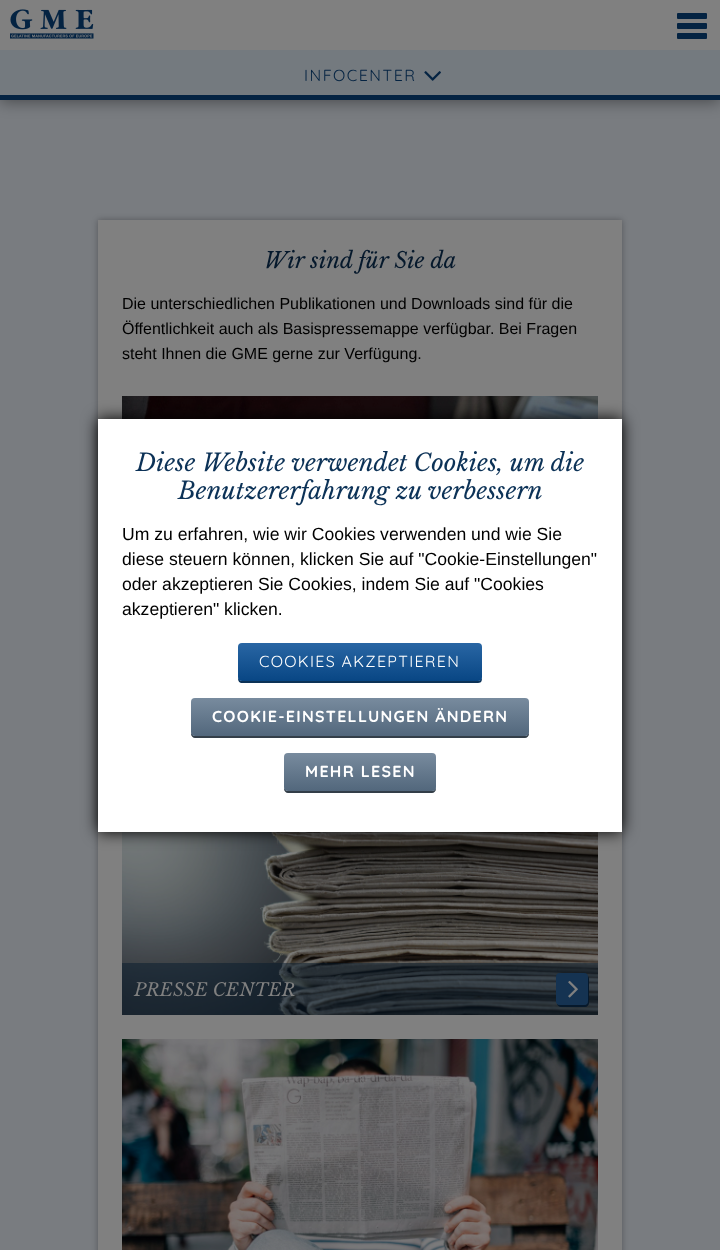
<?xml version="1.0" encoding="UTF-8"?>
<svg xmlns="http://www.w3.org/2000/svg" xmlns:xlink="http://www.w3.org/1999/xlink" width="720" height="1250">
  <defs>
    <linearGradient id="g1" gradientUnits="userSpaceOnUse" x1="360" y1="643" x2="360" y2="681"><stop offset="0" stop-color="#2966a4" /><stop offset="1" stop-color="#084684" /></linearGradient>
    <linearGradient id="g2" gradientUnits="userSpaceOnUse" x1="360" y1="698" x2="360" y2="736"><stop offset="0" stop-color="#788b9e" /><stop offset="1" stop-color="#52677c" /></linearGradient>
    <linearGradient id="g3" gradientUnits="userSpaceOnUse" x1="360" y1="753" x2="360" y2="791"><stop offset="0" stop-color="#788b9e" /><stop offset="1" stop-color="#52677c" /></linearGradient>
  </defs>
  <rect width="100%" height="100%" fill="#797c80" />
  <rect y="2" width="720" height="100" fill="#000000" fill-opacity="0.4" filter="blur(7.5px)" />
  <rect width="720" height="50" fill="#808080" />
  <image x="10" y="9" width="84" height="30" xlink:href="image1.png" />
  <rect x="677" y="23" width="30" height="6" rx="1" fill="#042342" />
  <rect x="677" y="13" width="30" height="6" rx="1" fill="#042342" />
  <rect x="677" y="33" width="30" height="6" rx="1" fill="#042342" />
  <rect y="50" width="720" height="45" fill="#747a7f" />
  <rect y="95" width="720" height="5" fill="#042342" />
  <image x="424" y="71" width="17" height="10" xlink:href="image2.png" />
  <rect x="98" y="220" width="524" height="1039" fill="#000000" fill-opacity="0.3" filter="blur(3px)" />
  <rect x="98" y="220" width="524" height="1030" fill="#808080" />
  <image x="122" y="396" width="476" height="23" xlink:href="image3.png" />
  <image x="122" y="832" width="476" height="183" xlink:href="image4.png" />
  <rect x="122" y="963" width="476" height="52" fill="#06192c" fill-opacity="0.5" />
  <path d="M 557 1003.5 c 0.5 2 2 3.5 4 3.5 h 24 c 2 0 4 -2 4 -4 v -24 c 0 -1 -0.5 -2 -1 -2.5 v 25.5 c -1 3.5 -5 3 -8 3 h -16 c -2 0 -5 0.5 -7 -1.5 z" fill="#06192c" />
  <rect x="556" y="973" width="32" height="32" rx="4" fill="#153352" />
  <image x="568" y="980" width="10" height="18" xlink:href="image5.png" />
  <image x="122" y="1039" width="476" height="211" xlink:href="image6.png" />
  <rect x="98" y="419" width="524" height="413" fill="#000000" filter="blur(8px)" />
  <rect x="98" y="419" width="524" height="413" fill="#ffffff" />
  <path d="M 238 677 c 0 2 0 5 3 6 h 237 c 4 0 4 -3 4 -6 c 0 2 -2 4 -4 4 h -236 c -2 0 -4 -2 -4 -4 z" fill="#0c3257" />
  <rect x="238" y="643" width="244" height="38" rx="4" fill="url(#g1)" />
  <path d="M 191 732 v 2 c 0 2 2 4 4 4 h 330 c 2 0 4 -2 4 -4 v -2 c 0 2 -2 4 -4 4 h -330 c -2 0 -4 -2 -4 -4 z" fill="#333e48" />
  <rect x="191" y="698" width="338" height="38" rx="4" fill="url(#g2)" />
  <path d="M 284 787 v 2 c 0 2 2 4 4 4 h 144 c 2 0 4 -2 4 -4 v -2 l -1 3 l -3 1 h -144 c -2 0 -4 -2 -4 -4 z" fill="#333e48" />
  <rect x="284" y="753" width="152" height="38" rx="4" fill="url(#g3)" />
  <text x="304" y="81" style="font-family: Quicksand; font-size: 16px; letter-spacing: 1.5px; fill: #042342">INFOCENTER</text>
  <text x="264" y="268" style="font-family: Libre Baskerville; font-size: 22px; font-style: italic; fill: #06192c">Wir sind für Sie da</text>
  <text x="122" y="309" style="font-family: Liberation Sans; font-size: 16px; fill: #000000">Die unterschiedlichen Publikationen und Downloads sind für die</text>
  <text x="122" y="334" style="font-family: Liberation Sans; font-size: 16px; fill: #000000">Öffentlichkeit auch als Basispressemappe verfügbar. Bei Fragen</text>
  <text x="122" y="359" style="font-family: Liberation Sans; font-size: 16px; fill: #000000">steht Ihnen die GME gerne zur Verfügung.</text>
  <text x="134" y="996" style="font-family: Libre Baskerville; font-size: 18px; font-style: italic; fill: #808080">PRESSE CENTER</text>
  <text x="136" y="471" style="font-family: Libre Baskerville; font-size: 24px; font-style: italic; fill: #0c3257">Diese Website verwendet Cookies, um die</text>
  <text x="178" y="499" style="font-family: Libre Baskerville; font-size: 24px; font-style: italic; fill: #0c3257">Benutzererfahrung zu verbessern</text>
  <text x="122" y="540" style="font-family: Liberation Sans; font-size: 17.6px; fill: #000000">Um zu erfahren, wie wir Cookies verwenden und wie Sie</text>
  <text x="122" y="565" style="font-family: Liberation Sans; font-size: 17.6px; fill: #000000">diese steuern können, klicken Sie auf "Cookie-Einstellungen"</text>
  <text x="122" y="590" style="font-family: Liberation Sans; font-size: 17.6px; fill: #000000">oder akzeptieren Sie Cookies, indem Sie auf "Cookies</text>
  <text x="122" y="615" style="font-family: Liberation Sans; font-size: 17.6px; fill: #000000">akzeptieren" klicken.</text>
  <text x="259" y="667" style="font-family: Quicksand; font-size: 16px; letter-spacing: 1.3px; fill: #ffffff">COOKIES AKZEPTIEREN</text>
  <text x="212" y="722" style="font-family: Quicksand; font-size: 16px; font-weight: bold; letter-spacing: 1.3px; fill: #ffffff">COOKIE-EINSTELLUNGEN ÄNDERN</text>
  <text x="305" y="777" style="font-family: Quicksand; font-size: 16px; font-weight: bold; letter-spacing: 1.3px; fill: #ffffff">MEHR LESEN</text>
</svg>
